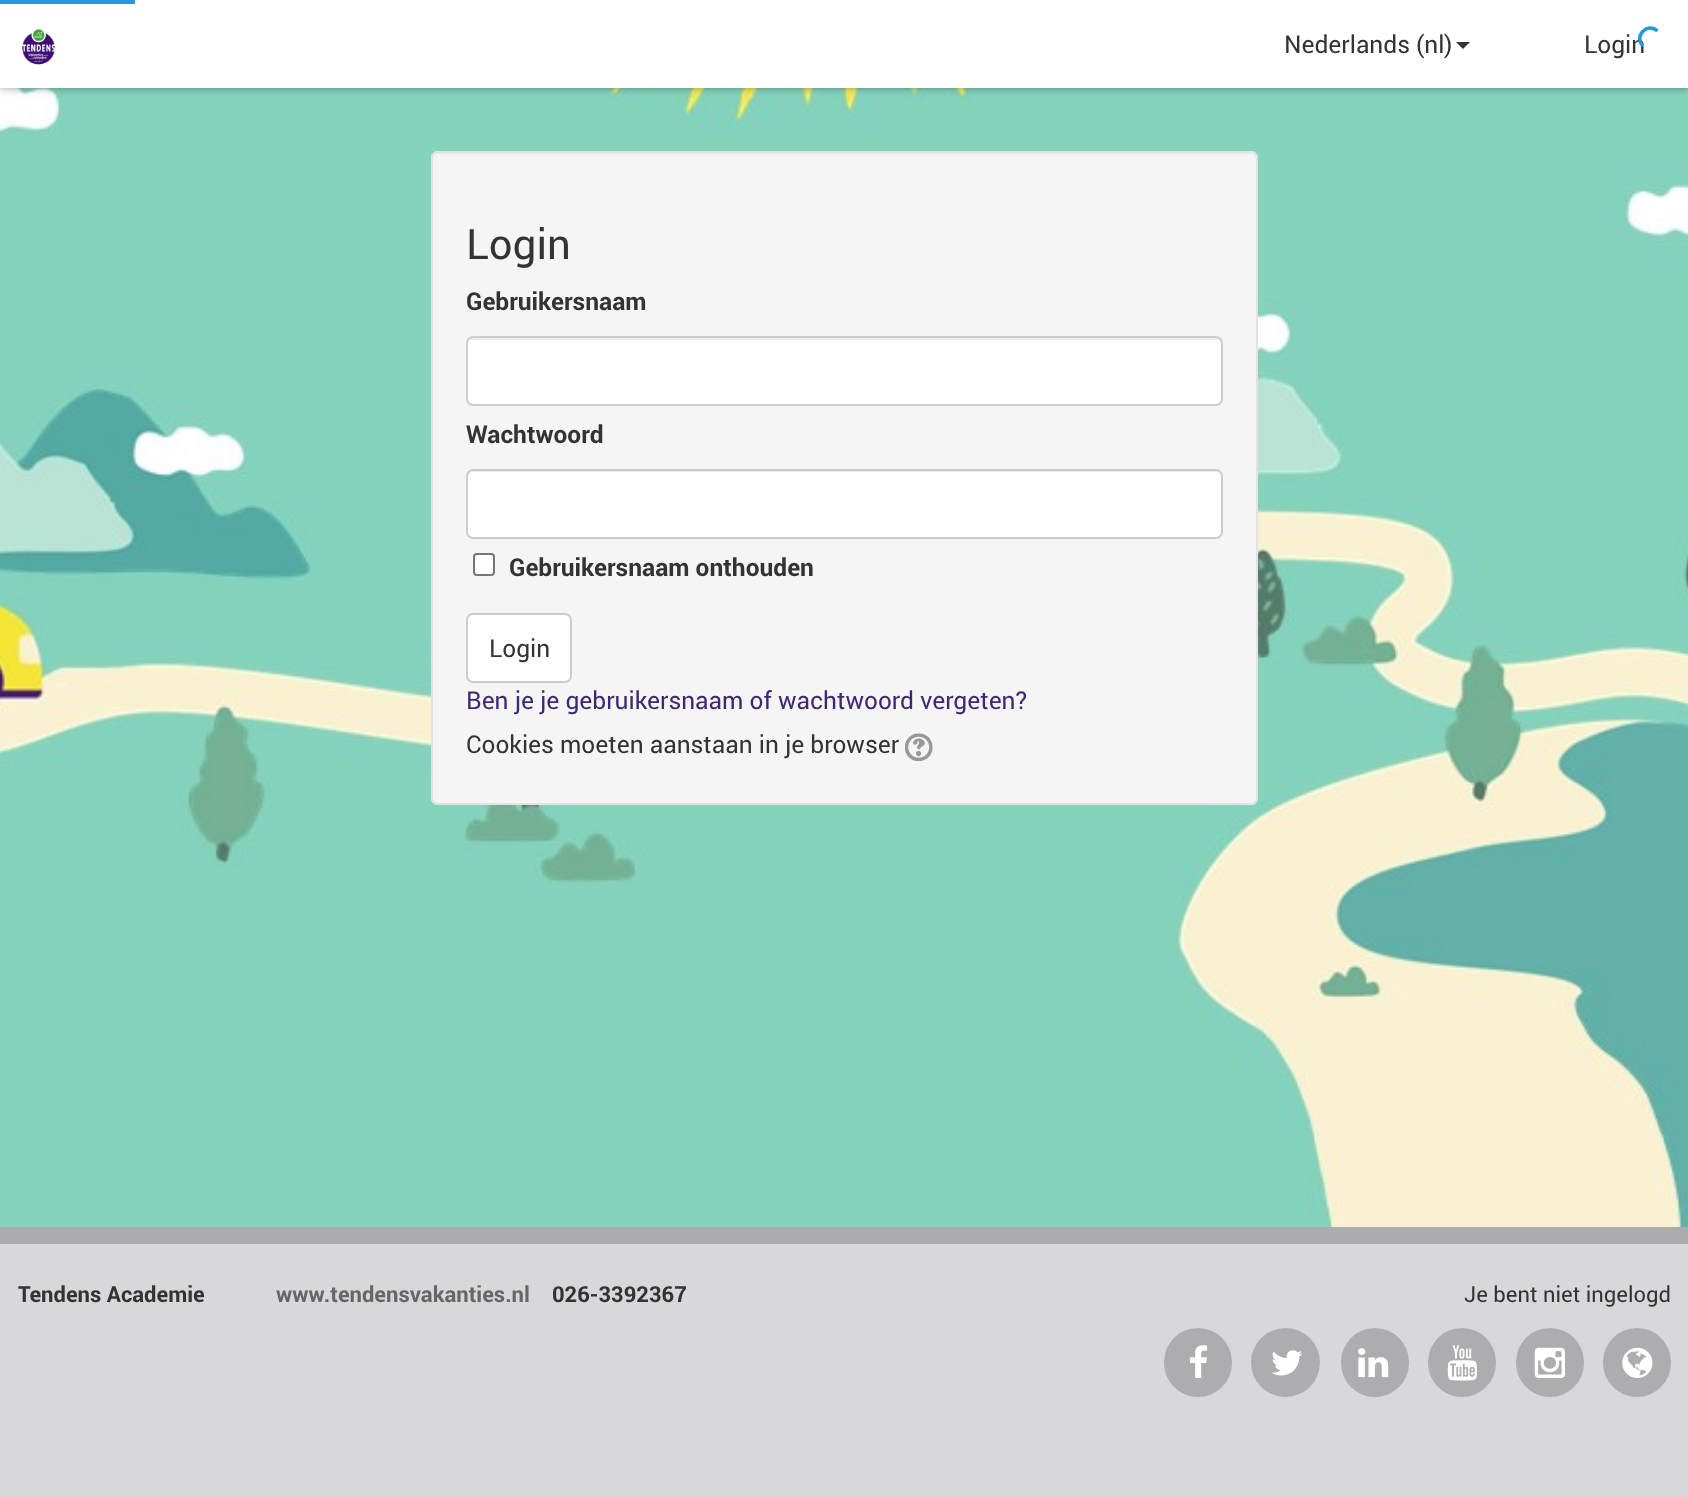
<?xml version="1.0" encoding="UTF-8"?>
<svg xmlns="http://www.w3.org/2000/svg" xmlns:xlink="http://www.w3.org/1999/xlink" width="1688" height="1497">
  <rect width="100%" height="100%" fill="#ffffff" />
  <image x="0" y="88" width="1688" height="1139" xlink:href="image3.png" />
  <rect y="2" width="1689" height="87" fill="#000000" fill-opacity="0.3" filter="blur(3.5px)" />
  <rect width="1688" height="88" fill="#ffffff" />
  <rect width="135" height="4" fill="#2299dd" />
  <image x="22" y="29" width="33" height="36" xlink:href="image1.png" />
  <path d="M 1456 42 h 14 l -7 7 z" fill="#333333" />
  <rect x="431" y="151" width="827" height="654" rx="7" fill="#f5f5f5" />
  <path d="M 438 154 h 813 c 3 0 5 2 5 5 v 642 c 1 -1 1 -2 1 -3 v -641 c 0 -3 -2 -5 -5 -5 h -815 c -3 0 -5 2 -5 5 v 2 c 0 -3 3 -5 6 -5 z" fill="#e9e9e9" />
  <rect x="432" y="152" width="825" height="652" rx="6" fill="none" stroke="#e3e3e3" stroke-width="2" />
  <rect x="466" y="336" width="757" height="70" rx="7" fill="#ffffff" />
  <path d="M 472 340 h 744 c 3 0 6 2 6 5 c 0 -3 -1 -7 -5 -7 h -745 c -4 0 -5 4 -5 7 c 0 -3 3 -5 5 -5 z" fill="#ececec" />
  <rect x="467" y="337" width="755" height="68" rx="6" fill="none" stroke="#cccccc" stroke-width="2" />
  <rect x="466" y="469" width="757" height="70" rx="7" fill="#ffffff" />
  <path d="M 472 472 h 744 c 3 0 6 3 6 6 c 0 -3 -1 -7 -5 -7 h -745 c -4 0 -5 4 -5 7 c 0 -3 3 -6 5 -6 z" fill="#ececec" />
  <rect x="467" y="470" width="755" height="68" rx="6" fill="none" stroke="#cccccc" stroke-width="2" />
  <rect x="474" y="554" width="20" height="21" rx="3" fill="#ffffff" stroke="#767676" stroke-width="2" />
  <rect x="467" y="614" width="104" height="68" rx="6" fill="#ffffff" stroke="#cccccc" stroke-width="2" />
  <image x="905" y="733" width="28" height="28" xlink:href="image2.png" />
  <rect y="1244" width="1688" height="253" fill="#d8d8db" />
  <rect y="1227" width="1688" height="17" fill="#acacae" />
  <rect x="1164" y="1328" width="68" height="69" rx="34" fill="#adadaf" />
  <image x="1190" y="1345" width="18" height="33" xlink:href="image4.png" />
  <circle cx="1285.5" cy="1362.5" r="34.5" fill="#adadaf" />
  <image x="1271" y="1350" width="32" height="26" xlink:href="image5.png" />
  <rect x="1341" y="1328" width="68" height="69" rx="34" fill="#adadaf" />
  <image x="1358" y="1348" width="31" height="30" xlink:href="image6.png" />
  <rect x="1428" y="1328" width="68" height="69" rx="34" fill="#adadaf" />
  <image x="1447" y="1345" width="30" height="36" xlink:href="image7.png" />
  <rect x="1516" y="1328" width="68" height="69" rx="34" fill="#adadaf" />
  <image x="1534" y="1347" width="31" height="31" xlink:href="image8.png" />
  <rect x="1603" y="1328" width="68" height="69" rx="34" fill="#adadaf" />
  <image x="1622" y="1347" width="31" height="31" xlink:href="image9.png" />
  <text x="1284" y="53" style="font-family: Roboto; font-size: 24.5px; fill: #333333">Nederlands (nl)</text>
  <text x="1584" y="53" style="font-family: Roboto; font-size: 24.5px; fill: #333333">Login</text>
  <path d="M 1643 46 c -10 -10 5 -24.5 14.5 -15" fill="none" stroke="#2299dd" stroke-width="3.5" />
  <text x="466" y="259" style="font-family: Roboto; font-size: 42px; fill: #333333">Login</text>
  <text x="466" y="310" style="font-family: Roboto; font-size: 24.5px; font-weight: bold; fill: #333333">Gebruikersnaam</text>
  <text x="466" y="443" style="font-family: Roboto; font-size: 24.5px; font-weight: bold; fill: #333333">Wachtwoord</text>
  <text x="509" y="576" style="font-family: Roboto; font-size: 24.5px; font-weight: bold; fill: #333333">Gebruikersnaam onthouden</text>
  <text x="489" y="657" style="font-family: Roboto; font-size: 24.5px; fill: #333333">Login</text>
  <text x="466" y="709" style="font-family: Roboto; font-size: 24.5px; fill: #402871">Ben je je gebruikersnaam of wachtwoord vergeten?</text>
  <text x="466" y="753" style="font-family: Roboto; font-size: 24.5px; fill: #333333">Cookies moeten aanstaan in je browser</text>
  <text x="18" y="1302" style="font-family: Roboto; font-size: 22px; font-weight: bold; fill: #333333">Tendens Academie</text>
  <text x="276" y="1302" style="font-family: Roboto; font-size: 22px; font-weight: bold; fill: #666666">www.tendensvakanties.nl</text>
  <text x="552" y="1302" style="font-family: Roboto; font-size: 22px; font-weight: bold; fill: #333333">026-3392367</text>
  <text x="1464" y="1302" style="font-family: Roboto; font-size: 22px; fill: #333333">Je bent niet ingelogd</text>
</svg>
